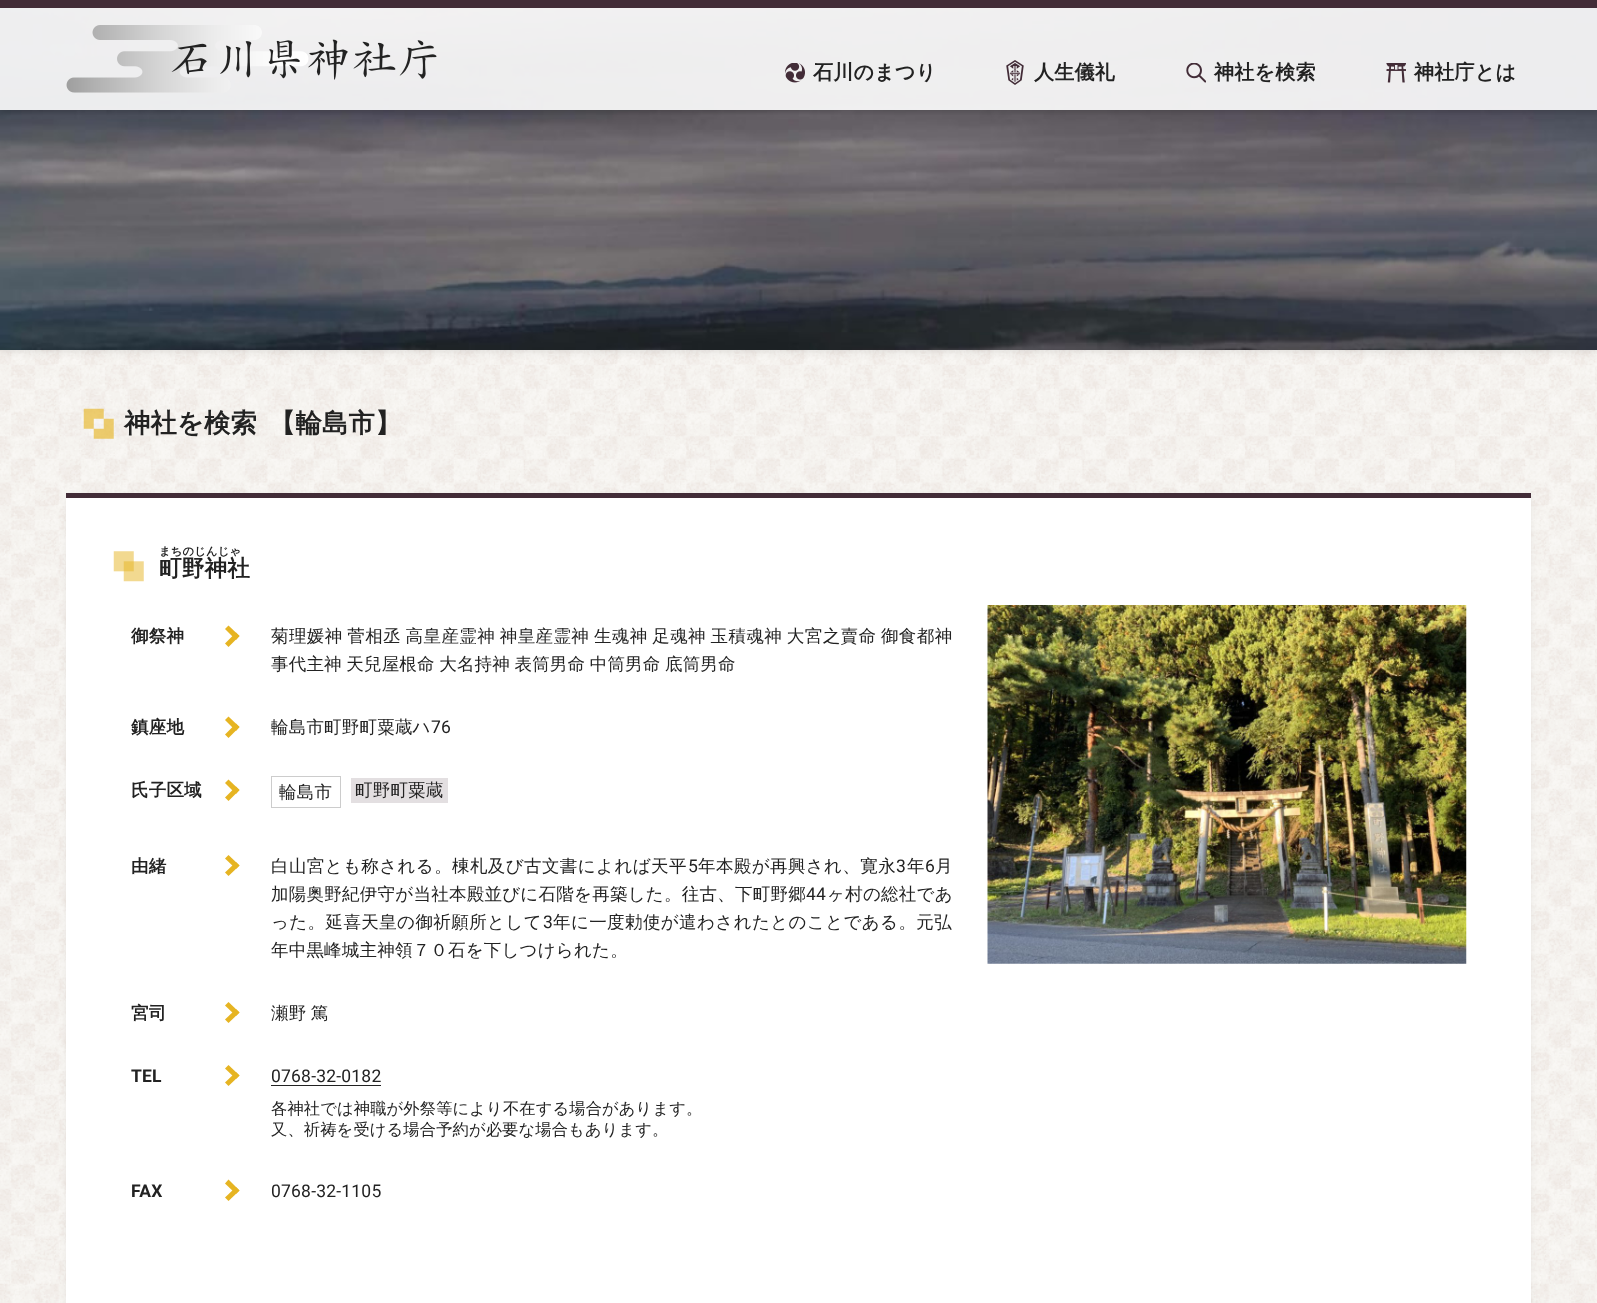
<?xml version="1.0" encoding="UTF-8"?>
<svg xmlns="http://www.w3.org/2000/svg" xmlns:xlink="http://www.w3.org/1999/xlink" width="1597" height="1303">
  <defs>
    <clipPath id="clip1"><rect x="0" y="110" width="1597" height="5" /></clipPath>
  </defs>
  <rect width="100%" height="100%" fill="#ffffff" />
  <image x="0" y="350" width="1597" height="953" xlink:href="image1.png" />
  <rect y="1" width="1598" height="350" fill="#000000" fill-opacity="0.1" filter="blur(4.5px)" />
  <image x="0" y="8" width="1597" height="342" xlink:href="image2.png" />
  <g clip-path="url(#clip1)">
    <rect y="1" width="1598" height="110" fill="#000000" fill-opacity="0.2" filter="blur(3px)" />
  </g>
  <rect y="8" width="1597" height="102" fill="#ffffff" fill-opacity="0.9" />
  <rect width="1597" height="8" fill="#422c37" />
  <image x="66" y="25" width="371" height="68" xlink:href="image3.png" />
  <image x="785" y="63" width="20" height="20" xlink:href="image4.png" />
  <image x="1006" y="60" width="18" height="25" xlink:href="image5.png" />
  <image x="1186" y="63" width="20" height="20" xlink:href="image6.png" />
  <image x="1386" y="63" width="20" height="20" xlink:href="image7.png" />
  <image x="83" y="408" width="31" height="31" xlink:href="image8.png" />
  <rect x="66" y="495" width="1465" height="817" fill="#000000" fill-opacity="0.05" filter="blur(3px)" />
  <rect x="66" y="498" width="1465" height="805" fill="#ffffff" />
  <rect x="66" y="493" width="1465" height="5" fill="#422c37" />
  <image x="113" y="551" width="31" height="31" xlink:href="image9.png" />
  <path d="M 228.5 625.5 l 11 10.5 l -3.5 4 l -11 -11 z" fill="#e6b422" />
  <path d="M 236 632.5 l 3.5 3.5 l -11 11 l -3.5 -3.5 z" fill="#e6b422" />
  <path d="M 228.5 716.5 l 11 10.5 l -3.5 4 l -11 -11 z" fill="#e6b422" />
  <path d="M 236 723.5 l 3.5 3.5 l -11 11 l -3.5 -3.5 z" fill="#e6b422" />
  <path d="M 228.5 779.5 l 11 10.5 l -3.5 4 l -11 -11 z" fill="#e6b422" />
  <path d="M 236 786.5 l 3.5 3.5 l -11 11 l -3.5 -3.5 z" fill="#e6b422" />
  <rect x="271.5" y="776.5" width="69" height="31" fill="none" stroke="#cccccc" />
  <rect x="351" y="778" width="97" height="25" fill="#e3dfe1" />
  <path d="M 228.5 855 l 11 10.5 l -3.5 3.5 l -11 -10.5 z" fill="#e6b422" />
  <path d="M 236 862 l 3.5 3.5 l -11 10.5 l -3.5 -3.5 z" fill="#e6b422" />
  <path d="M 228.5 1002 l 11 10.5 l -3.5 3.5 l -11 -10.5 z" fill="#e6b422" />
  <path d="M 236 1009 l 3.5 3.5 l -11 10.5 l -3.5 -3.5 z" fill="#e6b422" />
  <path d="M 228.5 1065 l 11 10.5 l -3.5 3.5 l -11 -10.5 z" fill="#e6b422" />
  <path d="M 236 1072 l 3.5 3.5 l -11 10.5 l -3.5 -3.5 z" fill="#e6b422" />
  <rect x="271" y="1085" width="110" height="1" fill="#222222" />
  <path d="M 228.5 1179.5 l 11 11 l -3.5 3.5 l -11 -10.5 z" fill="#e6b422" />
  <path d="M 236 1187 l 3.5 3.5 l -11 10.5 l -3.5 -3.5 z" fill="#e6b422" />
  <image x="987" y="605" width="480" height="359" xlink:href="image10.png" />
  <text x="813" y="79" style="font-family: WenQuanYi Zen Hei; font-size: 20px; font-weight: bold; letter-spacing: 0.25px; fill: #222222">石川のまつり</text>
  <text x="1034" y="79" style="font-family: WenQuanYi Zen Hei; font-size: 20px; font-weight: bold; letter-spacing: 0.25px; fill: #222222">人生儀礼</text>
  <text x="1214" y="79" style="font-family: WenQuanYi Zen Hei; font-size: 20px; font-weight: bold; letter-spacing: 0.25px; fill: #222222">神社を検索</text>
  <text x="1414" y="79" style="font-family: WenQuanYi Zen Hei; font-size: 20px; font-weight: bold; letter-spacing: 0.25px; fill: #222222">神社庁とは</text>
  <text x="124" y="432" style="font-family: WenQuanYi Zen Hei; font-size: 26.25px; font-weight: bold; letter-spacing: 0.25px; fill: #222222">神社を検索</text>
  <text x="269" y="432" style="font-family: WenQuanYi Zen Hei; font-size: 26.25px; font-weight: bold; letter-spacing: 0.25px; fill: #222222">【輪島市】</text>
  <text x="159" y="555" style="font-family: WenQuanYi Zen Hei; font-size: 11.25px; font-weight: bold; letter-spacing: 0.25px; fill: #222222">まちのじんじゃ</text>
  <text x="159" y="576" style="font-family: WenQuanYi Zen Hei; font-size: 22.5px; font-weight: bold; letter-spacing: 0.25px; fill: #222222">町野神社</text>
  <text x="131" y="642" style="font-family: WenQuanYi Zen Hei; font-size: 17.5px; font-weight: bold; letter-spacing: 0.2px; fill: #222222">御祭神</text>
  <text x="271" y="642" word-spacing="-1" style="font-family: WenQuanYi Zen Hei; font-size: 17.5px; font-weight: 500; letter-spacing: 0.4px; fill: #222222">菊理媛神 菅相丞 高皇産霊神 神皇産霊神 生魂神 足魂神 玉積魂神 大宮之賣命 御食都神</text>
  <text x="271" y="670" word-spacing="-1" style="font-family: WenQuanYi Zen Hei; font-size: 17.5px; font-weight: 500; letter-spacing: 0.2px; fill: #222222">事代主神 天兒屋根命 大名持神 表筒男命 中筒男命 底筒男命</text>
  <text x="131" y="733" style="font-family: WenQuanYi Zen Hei; font-size: 17.5px; font-weight: bold; letter-spacing: 0.2px; fill: #222222">鎮座地</text>
  <text x="271" y="733" style="font-family: WenQuanYi Zen Hei; font-size: 17.5px; font-weight: 500; letter-spacing: 0.2px; fill: #222222">輪島市町野町粟蔵ハ</text>
  <text x="431" y="733" style="font-family: Roboto; font-size: 17.5px; letter-spacing: 0.2px; fill: #222222">76</text>
  <text x="131" y="796" style="font-family: WenQuanYi Zen Hei; font-size: 17.5px; font-weight: bold; letter-spacing: 0.2px; fill: #222222">氏子区域</text>
  <text x="279" y="798" style="font-family: WenQuanYi Zen Hei; font-size: 17.5px; font-weight: 500; letter-spacing: 0.2px; fill: #222222">輪島市</text>
  <text x="355" y="796" style="font-family: WenQuanYi Zen Hei; font-size: 17.5px; font-weight: 500; letter-spacing: 0.2px; fill: #222222">町野町粟蔵</text>
  <text x="131" y="872" style="font-family: WenQuanYi Zen Hei; font-size: 17.5px; font-weight: bold; letter-spacing: 0.2px; fill: #222222">由緒</text>
  <text x="271" y="872" style="font-family: WenQuanYi Zen Hei; font-size: 17.5px; font-weight: 500; letter-spacing: 0.4px; fill: #222222">白山宮とも称される。棟札及び古文書によれば天平</text>
  <text x="688" y="872" style="font-family: Roboto; font-size: 17.5px; letter-spacing: 0.4px; fill: #222222">5</text>
  <text x="698" y="872" style="font-family: WenQuanYi Zen Hei; font-size: 17.5px; font-weight: 500; letter-spacing: 0.4px; fill: #222222">年本殿が再興され、寛永</text>
  <text x="896" y="872" style="font-family: Roboto; font-size: 17.5px; letter-spacing: 0.4px; fill: #222222">3</text>
  <text x="907" y="872" style="font-family: WenQuanYi Zen Hei; font-size: 17.5px; font-weight: 500; letter-spacing: 0.4px; fill: #222222">年</text>
  <text x="925" y="872" style="font-family: Roboto; font-size: 17.5px; letter-spacing: 0.4px; fill: #222222">6</text>
  <text x="935" y="872" style="font-family: WenQuanYi Zen Hei; font-size: 17.5px; font-weight: 500; letter-spacing: 0.4px; fill: #222222">月</text>
  <text x="271" y="900" style="font-family: WenQuanYi Zen Hei; font-size: 17.5px; font-weight: 500; letter-spacing: 0.25px; fill: #222222">加陽奥野紀伊守が当社本殿並びに石階を再築した。往古、下町野郷</text>
  <text x="806" y="900" style="font-family: Roboto; font-size: 17.5px; letter-spacing: 0.25px; fill: #222222">44</text>
  <text x="827" y="900" style="font-family: WenQuanYi Zen Hei; font-size: 17.5px; font-weight: 500; letter-spacing: 0.25px; fill: #222222">ヶ村の総社であ</text>
  <text x="271" y="928" style="font-family: WenQuanYi Zen Hei; font-size: 17.5px; font-weight: 500; letter-spacing: 0.4px; fill: #222222">った。延喜天皇の御祈願所として</text>
  <text x="543" y="928" style="font-family: Roboto; font-size: 17.5px; letter-spacing: 0.4px; fill: #222222">3</text>
  <text x="553" y="928" style="font-family: WenQuanYi Zen Hei; font-size: 17.5px; font-weight: 500; letter-spacing: 0.4px; fill: #222222">年に一度勅使が遣わされたとのことである。元弘</text>
  <text x="271" y="956" style="font-family: WenQuanYi Zen Hei; font-size: 17.5px; font-weight: 500; letter-spacing: 0.2px; fill: #222222">年中黒峰城主神領７０石を下しつけられた。</text>
  <text x="131" y="1019" style="font-family: WenQuanYi Zen Hei; font-size: 17.5px; font-weight: bold; letter-spacing: 0.2px; fill: #222222">宮司</text>
  <text x="271" y="1019" word-spacing="-1" style="font-family: WenQuanYi Zen Hei; font-size: 17.5px; font-weight: 500; letter-spacing: 0.2px; fill: #222222">瀬野 篤</text>
  <text x="131" y="1082" style="font-family: Roboto; font-size: 17.5px; font-weight: bold; letter-spacing: 0.2px; fill: #222222">TEL</text>
  <text x="271" y="1082" style="font-family: Roboto; font-size: 17.5px; letter-spacing: 0.2px; fill: #222222">0768-32-0182</text>
  <text x="271" y="1114" style="font-family: WenQuanYi Zen Hei; font-size: 16.25px; font-weight: 500; letter-spacing: 0.15px; fill: #222222">各神社では神職が外祭等により不在する場合があります。</text>
  <text x="271" y="1135" style="font-family: WenQuanYi Zen Hei; font-size: 16.25px; font-weight: 500; letter-spacing: 0.15px; fill: #222222">又、祈祷を受ける場合予約が必要な場合もあります。</text>
  <text x="131" y="1197" style="font-family: Roboto; font-size: 17.5px; font-weight: bold; letter-spacing: 0.2px; fill: #222222">FAX</text>
  <text x="271" y="1197" style="font-family: Roboto; font-size: 17.5px; letter-spacing: 0.2px; fill: #222222">0768-32-1105</text>
</svg>
